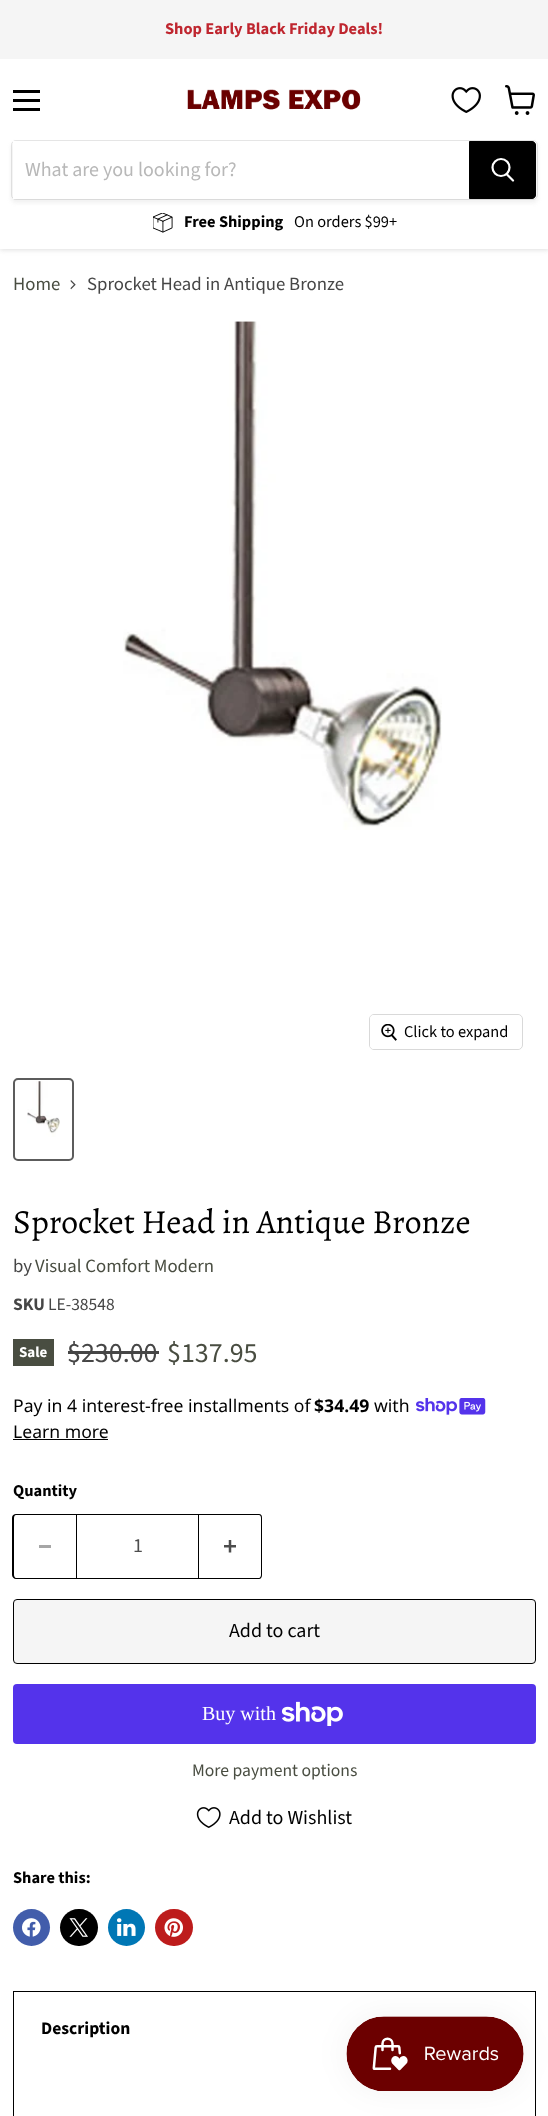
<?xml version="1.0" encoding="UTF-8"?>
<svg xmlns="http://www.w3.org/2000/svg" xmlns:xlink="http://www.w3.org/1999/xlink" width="548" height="2116">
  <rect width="100%" height="100%" fill="#ffffff" />
  <rect y="60" width="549" height="190" fill="#808080" fill-opacity="0.25" filter="blur(2.5px)" />
  <rect width="548" height="59" fill="#f5f5f5" />
  <rect y="59" width="548" height="190" fill="#ffffff" />
  <rect x="13" y="90" width="27" height="3" fill="#000000" />
  <rect x="13" y="99" width="27" height="3" fill="#000000" />
  <rect x="13" y="108" width="27" height="3" fill="#000000" />
  <image x="451" y="87" width="30" height="26" xlink:href="image1.png" />
  <image x="505" y="85" width="30" height="30" xlink:href="image2.png" />
  <image x="187" y="89" width="174" height="21" xlink:href="image3.png" />
  <rect x="11" y="143" width="527" height="60" rx="5" fill="#808080" fill-opacity="0.11" filter="blur(2px)" />
  <rect x="11.5" y="140.5" width="526" height="59" rx="4.5" fill="none" stroke="#808080" stroke-opacity="0.2" />
  <rect x="13" y="141" width="456" height="58" fill="#ffffff" />
  <path d="M 469.5 141.5 h 62.5 c 2 0 3.5 1.5 3.5 3.5 v 50 c 0 2 -1.5 3.5 -3.5 3.5 h -62.5 z" fill="#000000" stroke="#000000" />
  <path d="M 513 180.5 l -6 -6" fill="none" stroke="#ffffff" stroke-width="2.2" stroke-linecap="round" />
  <circle cx="501" cy="167.5" r="8.5" fill="none" stroke="#ffffff" stroke-width="2.2" />
  <image x="153" y="213" width="20" height="20" xlink:href="image4.png" />
  <image x="70" y="280" width="6" height="10" xlink:href="image5.png" />
  <image x="123" y="321" width="319" height="509" xlink:href="image6.png" />
  <rect x="369.5" y="1014.5" width="153" height="35" rx="4.5" fill="none" stroke="#d9d9d9" />
  <rect x="370" y="1015" width="151" height="34" rx="4" fill="#ffffff" fill-opacity="0.9" />
  <image x="381" y="1024" width="16" height="17" xlink:href="image7.png" />
  <rect x="14" y="1079" width="59" height="81" rx="4" fill="none" stroke="#5c5c5c" stroke-width="2" />
  <image x="27" y="1081" width="33" height="56" xlink:href="image8.png" />
  <rect x="13" y="1339" width="41" height="27" fill="#494d41" />
  <rect x="68" y="1351" width="91" height="3" fill="#464646" />
  <image x="416" y="1398" width="70" height="17" xlink:href="image9.png" />
  <rect x="13" y="1439" width="95" height="1" fill="#000000" />
  <path d="M 16 1514 h 60 v 65 h -60 c -2 0 -4 -2 -4 -4 v -57 c 0 -3 2 -4 4 -4 z m 0 1 h 60 v 63 h -60 c -1 0 -2 -2 -2 -3 v -57 c 0 -2 1 -3 2 -3 z" fill="#000000" fill-rule="evenodd" />
  <rect x="39" y="1545" width="12" height="3" fill="#a6a6a6" />
  <rect x="76.5" y="1514.5" width="122" height="64" fill="none" stroke="#000000" />
  <path d="M 199 1514 h 60 c 2 0 3 1 3 4 v 57 c 0 2 -1 4 -3 4 h -60 z m 0 1 h 60 c 1 0 2 1 2 3 v 57 c 0 1 -1 3 -2 3 h -60 z" fill="#000000" fill-rule="evenodd" />
  <image x="224" y="1540" width="12" height="13" xlink:href="image10.png" />
  <rect x="13.5" y="1599.5" width="522" height="64" rx="3.5" fill="#f5f5f5" stroke="#000000" />
  <rect x="13" y="1684" width="523" height="60" rx="4" fill="#5433eb" />
  <image x="281" y="1701" width="62" height="25" xlink:href="image11.png" />
  <image x="196" y="1807" width="25" height="21" xlink:href="image12.png" />
  <circle cx="31.5" cy="1927.5" r="18.5" fill="#425dab" />
  <image x="22" y="1918" width="19" height="19" xlink:href="image13.png" />
  <rect x="60" y="1909" width="38" height="37" rx="18.5" fill="#000000" />
  <image x="69" y="1918" width="19" height="19" xlink:href="image14.png" />
  <circle cx="126.5" cy="1927.5" r="18.5" fill="#0077b5" />
  <image x="117" y="1918" width="19" height="18" xlink:href="image15.png" />
  <rect x="155" y="1909" width="38" height="37" rx="18.5" fill="#bd1c1c" />
  <image x="164" y="1918" width="19" height="19" xlink:href="image16.png" />
  <rect x="13" y="1991" width="523" height="1" fill="#000000" />
  <rect x="535" y="1991" width="1" height="125" fill="#000000" />
  <rect x="13" y="1991" width="1" height="125" fill="#000000" />
  <rect x="346" y="2016" width="178" height="75" rx="37.5" fill="#000000" fill-opacity="0.05" filter="blur(15.5px)" />
  <image x="346" y="2016" width="178" height="75" xlink:href="image17.png" />
  <text x="165" y="34" style="font-family: Source Sans Pro; font-size: 16.4px; font-weight: bold; fill: #bf262f">Shop Early Black Friday Deals!</text>
  <text x="25" y="176" style="font-family: Source Sans Pro; font-size: 20px; fill: #b8b8b8">What are you looking for?</text>
  <text x="184" y="227" style="font-family: Source Sans Pro; font-size: 16.4px; font-weight: bold; fill: #000000">Free Shipping</text>
  <text x="294" y="227" style="font-family: Source Sans Pro; font-size: 16.4px; fill: #000000">On orders $99+</text>
  <text x="13" y="290" style="font-family: Source Sans Pro; font-size: 18.75px; fill: #494d41">Home</text>
  <text x="87" y="290" style="font-family: Source Sans Pro; font-size: 18.75px; fill: #464646">Sprocket Head in Antique Bronze</text>
  <text x="404" y="1037" style="font-family: Source Sans Pro; font-size: 16.4px; fill: #000000">Click to expand</text>
  <text x="13" y="1233" style="font-family: Alegreya; font-size: 33.75px; fill: #000000">Sprocket Head in Antique Bronze</text>
  <text x="13" y="1272" style="font-family: Source Sans Pro; font-size: 18.75px; fill: #464646">by</text>
  <text x="35" y="1272" style="font-family: Source Sans Pro; font-size: 18.75px; fill: #494d41">Visual Comfort Modern</text>
  <text x="13" y="1310" style="font-family: Source Sans Pro; font-size: 17.5px; font-weight: bold; fill: #464646">SKU</text>
  <text x="48" y="1310" style="font-family: Source Sans Pro; font-size: 17.5px; fill: #464646">LE-38548</text>
  <text x="19" y="1357" style="font-family: Source Sans Pro; font-size: 15px; font-weight: bold; fill: #ffffff">Sale</text>
  <text x="67" y="1362" style="font-family: Source Sans Pro; font-size: 28px; fill: #464646">$230.00</text>
  <text x="167" y="1362" style="font-family: Source Sans Pro; font-size: 28px; fill: #494d41">$137.95</text>
  <text x="13" y="1412" style="font-family: Noto Sans; font-size: 17.6px; fill: #000000">Pay in 4 interest-free installments of</text>
  <text x="314" y="1412" style="font-family: Noto Sans; font-size: 17.6px; font-weight: bold; fill: #000000">$34.49</text>
  <text x="374" y="1412" style="font-family: Noto Sans; font-size: 17.6px; fill: #000000">with</text>
  <text x="13" y="1438" style="font-family: Noto Sans; font-size: 17.6px; fill: #000000">Learn more</text>
  <text x="13" y="1496" style="font-family: Source Sans Pro; font-size: 16.4px; font-weight: bold; fill: #000000">Quantity</text>
  <text x="133" y="1552" style="font-family: Source Sans Pro; font-size: 20px; fill: #4d4d4d">1</text>
  <text x="229" y="1637" style="font-family: Source Sans Pro; font-size: 20px; fill: #000000">Add to cart</text>
  <text x="202" y="1720" style="font-family: Liberation Serif; font-size: 20px; fill: #ffffff">Buy with</text>
  <text x="192" y="1776" style="font-family: Source Sans Pro; font-size: 17.6px; fill: #494d41">More payment options</text>
  <text x="229" y="1824" style="font-family: Source Sans Pro; font-size: 20px; fill: #000000">Add to Wishlist</text>
  <text x="13" y="1883" style="font-family: Source Sans Pro; font-size: 16.4px; font-weight: bold; fill: #000000">Share this:</text>
  <text x="41" y="2034" style="font-family: Source Sans Pro; font-size: 17.6px; font-weight: bold; fill: #000000">Description</text>
</svg>
